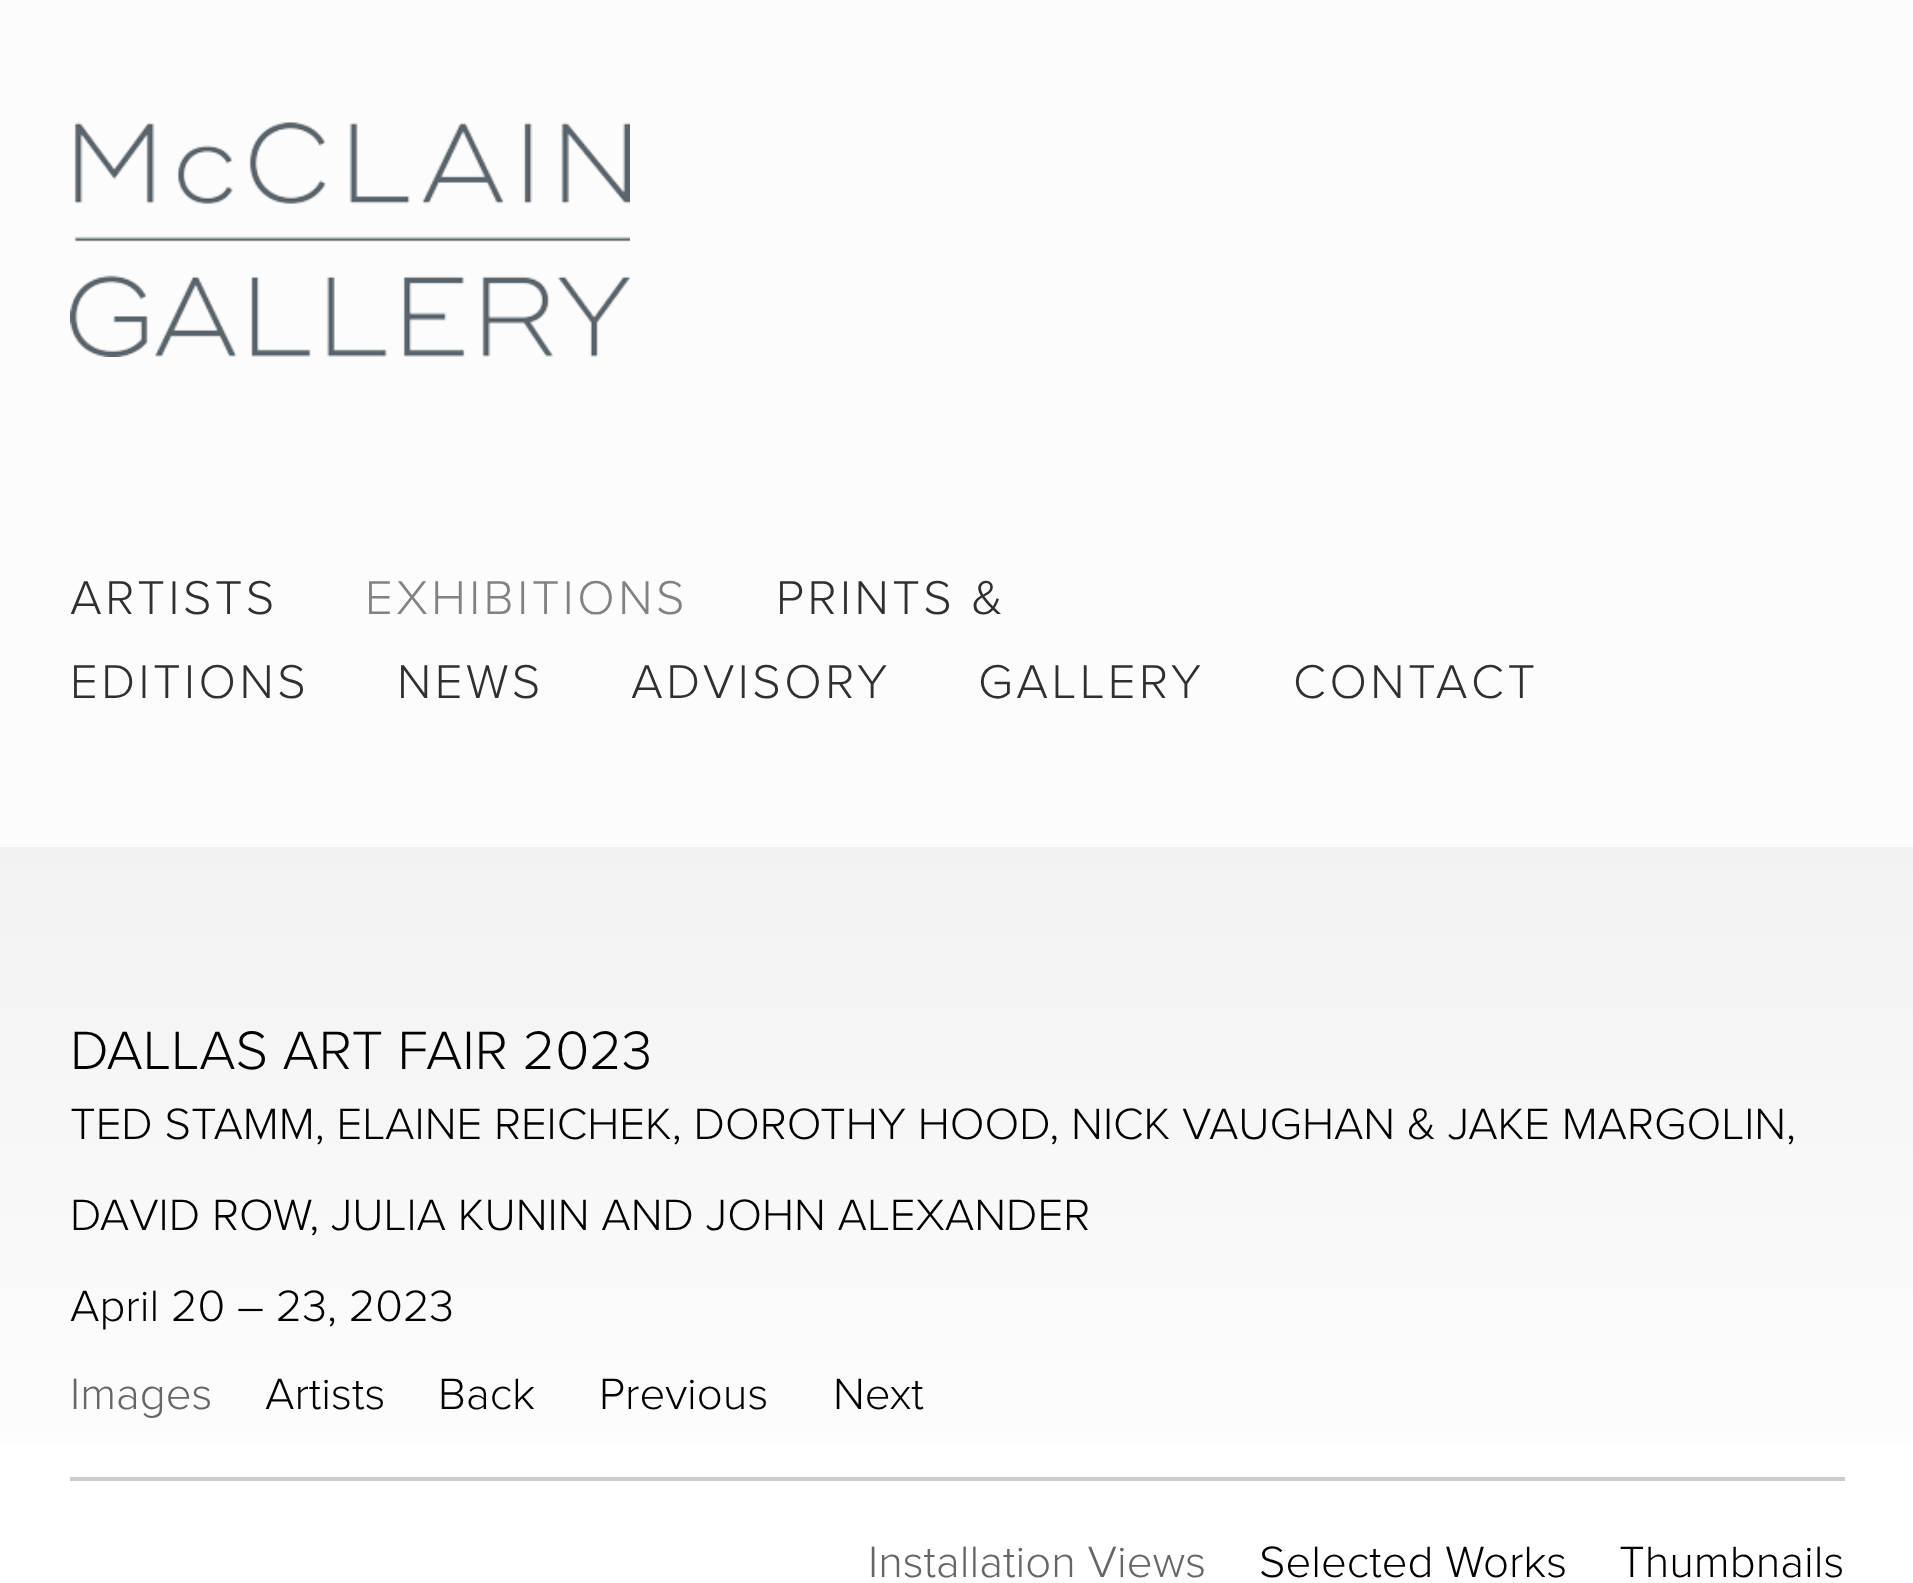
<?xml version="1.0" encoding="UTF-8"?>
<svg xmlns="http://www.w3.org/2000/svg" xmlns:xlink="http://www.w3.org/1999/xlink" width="1913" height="1583">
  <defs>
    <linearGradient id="g1" gradientUnits="userSpaceOnUse" x1="957" y1="0" x2="957" y2="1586"><stop offset="0" stop-color="#f02f17" /><stop offset="0" stop-color="#eeeeee" /><stop offset="0.5" stop-color="#f1f1f1" /><stop offset="1" stop-color="#ffffff" /></linearGradient>
    <linearGradient id="g2" gradientUnits="userSpaceOnUse" x1="957" y1="0" x2="957" y2="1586"><stop offset="0" stop-color="#fcd5d1" /><stop offset="0" stop-color="#fcfcfc" /><stop offset="0.5" stop-color="#fcfcfc" /><stop offset="1" stop-color="#ffffff" /></linearGradient>
  </defs>
  <rect width="100%" height="100%" fill="#ffffff" />
  <rect y="847" width="1913" height="597" fill="url(#g1)" />
  <rect width="1913" height="847" fill="url(#g2)" />
  <image x="70" y="122" width="560" height="235" xlink:href="image1.png" />
  <rect x="70" y="1477" width="1775" height="4" fill="#cccccc" />
  <text x="70" y="614" style="font-family: 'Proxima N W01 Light'; font-size: 49px; font-weight: 300; letter-spacing: 3.5px; fill: #303030">ARTISTS</text>
  <text x="365" y="614" style="font-family: 'Proxima N W01 Light'; font-size: 49px; font-weight: 300; letter-spacing: 3.5px; fill: #828282">EXHIBITIONS</text>
  <text x="776" y="614" style="font-family: 'Proxima N W01 Light'; font-size: 49px; font-weight: 300; letter-spacing: 3.5px; fill: #303030">PRINTS &amp;</text>
  <text x="70" y="698" style="font-family: 'Proxima N W01 Light'; font-size: 49px; font-weight: 300; letter-spacing: 3.5px; fill: #303030">EDITIONS</text>
  <text x="397" y="698" style="font-family: 'Proxima N W01 Light'; font-size: 49px; font-weight: 300; letter-spacing: 3.5px; fill: #303030">NEWS</text>
  <text x="631" y="698" style="font-family: 'Proxima N W01 Light'; font-size: 49px; font-weight: 300; letter-spacing: 3.5px; fill: #303030">ADVISORY</text>
  <text x="978" y="698" style="font-family: 'Proxima N W01 Light'; font-size: 49px; font-weight: 300; letter-spacing: 3.5px; fill: #303030">GALLERY</text>
  <text x="1293" y="698" style="font-family: 'Proxima N W01 Light'; font-size: 49px; font-weight: 300; letter-spacing: 3.5px; fill: #303030">CONTACT</text>
  <text x="70" y="1069" style="font-family: 'Proxima N W01 Light'; font-size: 56px; font-weight: 300; fill: #000000">DALLAS ART FAIR 2023</text>
  <text x="70" y="1139" style="font-family: 'Proxima N W01 Light'; font-size: 45.5px; font-weight: 300; fill: #000000">TED STAMM, ELAINE REICHEK, DOROTHY HOOD, NICK VAUGHAN &amp; JAKE MARGOLIN,</text>
  <text x="70" y="1230" style="font-family: 'Proxima N W01 Light'; font-size: 45.5px; font-weight: 300; fill: #000000">DAVID ROW, JULIA KUNIN AND JOHN ALEXANDER</text>
  <text x="70" y="1321" style="font-family: 'Proxima N W01 Light'; font-size: 45.5px; font-weight: 300; fill: #000000">April 20 – 23, 2023</text>
  <text x="70" y="1409" style="font-family: 'Proxima N W01 Light'; font-size: 45.5px; font-weight: 300; fill: #666666">Images</text>
  <text x="265" y="1409" style="font-family: 'Proxima N W01 Light'; font-size: 45.5px; font-weight: 300; fill: #000000">Artists</text>
  <text x="438" y="1409" style="font-family: 'Proxima N W01 Light'; font-size: 45.5px; font-weight: 300; fill: #000000">Back</text>
  <text x="599" y="1409" style="font-family: 'Proxima N W01 Light'; font-size: 45.5px; font-weight: 300; fill: #000000">Previous</text>
  <text x="833" y="1409" style="font-family: 'Proxima N W01 Light'; font-size: 45.5px; font-weight: 300; fill: #000000">Next</text>
  <text x="868" y="1577" style="font-family: 'Proxima N W01 Light'; font-size: 45.5px; font-weight: 300; fill: #666666">Installation Views</text>
  <text x="1259" y="1577" style="font-family: 'Proxima N W01 Light'; font-size: 45.5px; font-weight: 300; fill: #000000">Selected Works</text>
  <text x="1619" y="1577" style="font-family: 'Proxima N W01 Light'; font-size: 45.5px; font-weight: 300; fill: #000000">Thumbnails</text>
</svg>
